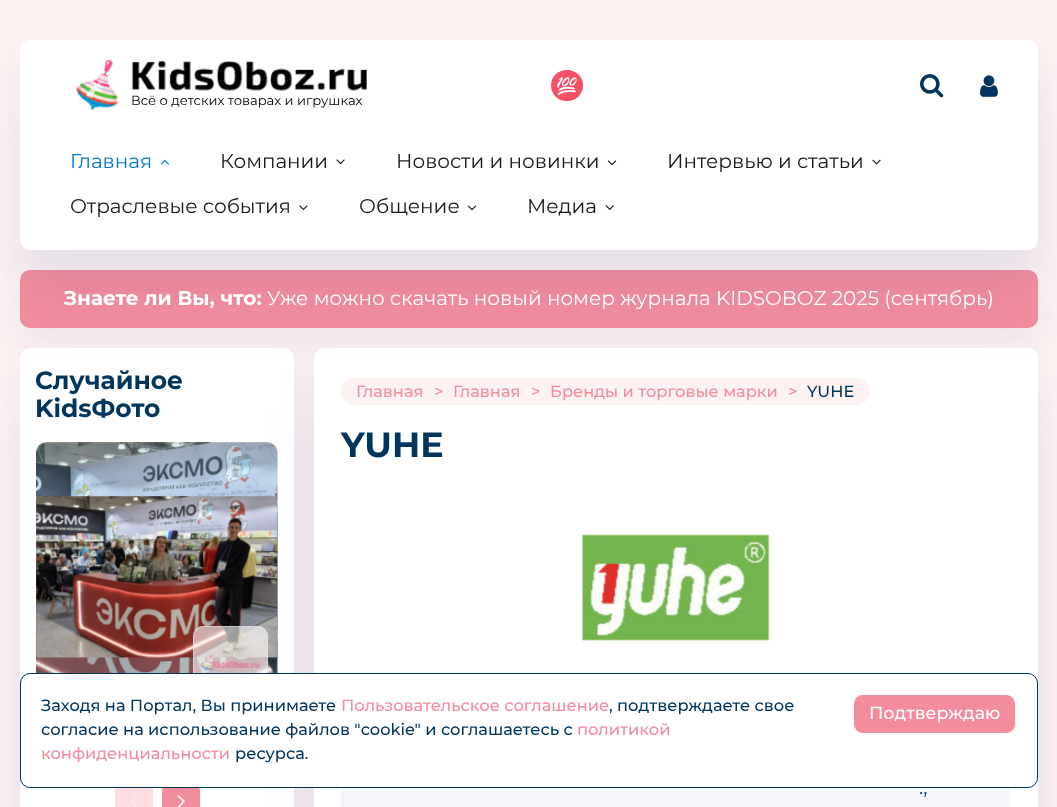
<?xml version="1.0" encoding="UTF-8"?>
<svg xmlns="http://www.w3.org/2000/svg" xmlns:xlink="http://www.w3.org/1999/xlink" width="1057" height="807">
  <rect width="100%" height="100%" fill="#fdf2f2" />
  <rect x="20" y="285" width="1018" height="58" rx="10" fill="#0d3f99" fill-opacity="0.06" filter="blur(16px)" />
  <rect x="20" y="270" width="1018" height="58" rx="10" fill="#f38d9d" />
  <rect x="20" y="55" width="1018" height="210" rx="10" fill="#0d3f99" fill-opacity="0.06" filter="blur(16px)" />
  <rect x="20" y="363" width="274" height="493" rx="10" fill="#0d3f99" fill-opacity="0.06" filter="blur(16px)" />
  <rect x="20" y="408" width="274" height="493" rx="10" fill="#0d3f99" fill-opacity="0.05" filter="blur(30px)" />
  <rect x="20" y="348" width="274" height="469" rx="10" fill="#ffffff" />
  <image x="36" y="442" width="242" height="231" xlink:href="image11.png" />
  <rect x="314" y="363" width="724" height="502" rx="10" fill="#0d3f99" fill-opacity="0.06" filter="blur(16px)" />
  <rect x="314" y="408" width="724" height="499" rx="10" fill="#0d3f99" fill-opacity="0.05" filter="blur(30px)" />
  <rect x="314" y="348" width="724" height="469" rx="10" fill="#ffffff" />
  <rect x="341" y="378" width="529" height="27" rx="13.5" fill="#fdf2f2" />
  <rect x="20" y="100" width="1018" height="210" rx="10" fill="#0d3f99" fill-opacity="0.05" filter="blur(30px)" />
  <rect x="20" y="40" width="1018" height="210" rx="10" fill="#ffffff" />
  <rect x="551" y="70" width="32" height="31" rx="15.5" fill="#f55065" />
  <image x="557" y="77" width="20" height="18" xlink:href="image1.png" />
  <image x="920" y="74" width="24" height="24" xlink:href="image2.png" />
  <image x="980" y="75" width="18" height="22" xlink:href="image3.png" />
  <image x="76" y="60" width="291" height="50" xlink:href="image4.png" />
  <image x="160" y="159" width="9" height="6" xlink:href="image5.png" />
  <image x="336" y="159" width="9" height="6" xlink:href="image6.png" />
  <image x="607" y="160" width="10" height="6" xlink:href="image7.png" />
  <image x="872" y="159" width="9" height="6" xlink:href="image8.png" />
  <image x="299" y="205" width="9" height="6" xlink:href="image9.png" />
  <image x="467" y="205" width="10" height="6" xlink:href="image7.png" />
  <image x="605" y="205" width="9" height="5" xlink:href="image10.png" />
  <rect x="36" y="443" width="242" height="268" rx="10" fill="#8fd6ff" fill-opacity="0.21" />
  <image x="36" y="496" width="242" height="163" xlink:href="image12.png" />
  <rect x="193" y="626" width="75" height="75" rx="10" fill="#ffffff" fill-opacity="0.6" />
  <image x="199" y="654" width="62" height="18" xlink:href="image13.png" />
  <rect x="193.5" y="626.5" width="74" height="74" rx="9.5" fill="none" stroke="#e0e0e0" stroke-opacity="0.6" />
  <rect x="114.5" y="781.5" width="39" height="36" rx="9.5" fill="#fbdde2" stroke="#ffffff" />
  <image x="131" y="795" width="7" height="12" xlink:href="image14.png" />
  <rect x="161.5" y="781.5" width="39" height="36" rx="9.5" fill="#f38d9d" stroke="#ffffff" />
  <image x="177" y="795" width="8" height="12" xlink:href="image15.png" />
  <image x="582" y="534" width="188" height="110" xlink:href="image16.png" />
  <rect x="341" y="788" width="669" height="19" fill="#f5f6fa" />
  <rect x="20.5" y="673.5" width="1017" height="114" rx="9.5" fill="#ffffff" stroke="#00365e" />
  <rect x="853.5" y="694.5" width="162" height="39" rx="9.5" fill="#f38d9d" stroke="#ffffff" />
  <text x="131" y="105" style="font-family: Montserrat; font-size: 13.1px; fill: #000000">Всё о детских товарах и игрушках</text>
  <text x="70" y="168" style="font-family: Montserrat; font-size: 20px; fill: #0179d2">Главная</text>
  <text x="220" y="168" style="font-family: Montserrat; font-size: 20px; fill: #191919">Компании</text>
  <text x="396" y="168" style="font-family: Montserrat; font-size: 20px; fill: #191919">Новости и новинки</text>
  <text x="667" y="168" style="font-family: Montserrat; font-size: 20px; fill: #191919">Интервью и статьи</text>
  <text x="70" y="213" style="font-family: Montserrat; font-size: 20px; fill: #191919">Отраслевые события</text>
  <text x="359" y="213" style="font-family: Montserrat; font-size: 20px; fill: #191919">Общение</text>
  <text x="527" y="213" style="font-family: Montserrat; font-size: 20px; fill: #191919">Медиа</text>
  <text x="64" y="305" style="font-family: Montserrat; font-size: 20px; font-weight: bold; fill: #ffffff">Знаете ли Вы, что:</text>
  <text x="267" y="305" style="font-family: Montserrat; font-size: 20px; fill: #ffffff">Уже можно скачать новый номер журнала KIDSOBOZ 2025 (сентябрь)</text>
  <text x="35" y="389" style="font-family: Montserrat; font-size: 25px; font-weight: bold; fill: #00365e">Случайное</text>
  <text x="35" y="417" style="font-family: Montserrat; font-size: 25px; font-weight: bold; fill: #00365e">KidsФото</text>
  <text x="356" y="397" style="font-family: Montserrat; font-size: 16.25px; font-weight: 500; fill: #f38d9d">Главная</text>
  <text x="434" y="397" style="font-family: Montserrat; font-size: 16.25px; font-weight: 500; fill: #ec9292">&gt;</text>
  <text x="453" y="397" style="font-family: Montserrat; font-size: 16.25px; font-weight: 500; fill: #f38d9d">Главная</text>
  <text x="531" y="397" style="font-family: Montserrat; font-size: 16.25px; font-weight: 500; fill: #ec9292">&gt;</text>
  <text x="550" y="397" style="font-family: Montserrat; font-size: 16.25px; font-weight: 500; fill: #f38d9d">Бренды и торговые марки</text>
  <text x="788" y="397" style="font-family: Montserrat; font-size: 16.25px; font-weight: 500; fill: #ec9292">&gt;</text>
  <text x="807" y="397" style="font-family: Montserrat; font-size: 16.25px; font-weight: 500; fill: #00365e">YUHE</text>
  <text x="341" y="457" style="font-family: Montserrat; font-size: 35px; font-weight: bold; fill: #00365e">YUHE</text>
  <text x="919" y="794" word-spacing="7" style="font-family: Montserrat; font-size: 20px; fill: #00365e">.,</text>
  <text x="41" y="711" style="font-family: Montserrat; font-size: 16.25px; font-weight: 500; fill: #00365e">Заходя на Портал, Вы принимаете</text>
  <text x="341" y="711" style="font-family: Montserrat; font-size: 16.25px; font-weight: 500; fill: #f38d9d">Пользовательское соглашение</text>
  <text x="609" y="711" style="font-family: Montserrat; font-size: 16.25px; font-weight: 500; fill: #00365e">, подтверждаете свое</text>
  <text x="41" y="735" style="font-family: Montserrat; font-size: 16.25px; font-weight: 500; fill: #00365e">согласие на использование файлов "cookie" и соглашаетесь с</text>
  <text x="577" y="735" style="font-family: Montserrat; font-size: 16.25px; font-weight: 500; fill: #f38d9d">политикой</text>
  <text x="41" y="759" style="font-family: Montserrat; font-size: 16.25px; font-weight: 500; fill: #f38d9d">конфиденциальности</text>
  <text x="235" y="759" style="font-family: Montserrat; font-size: 16.25px; font-weight: 500; fill: #00365e">ресурса.</text>
  <text x="869" y="719" style="font-family: Montserrat; font-size: 17.5px; font-weight: 500; fill: #ffffff">Подтверждаю</text>
</svg>
